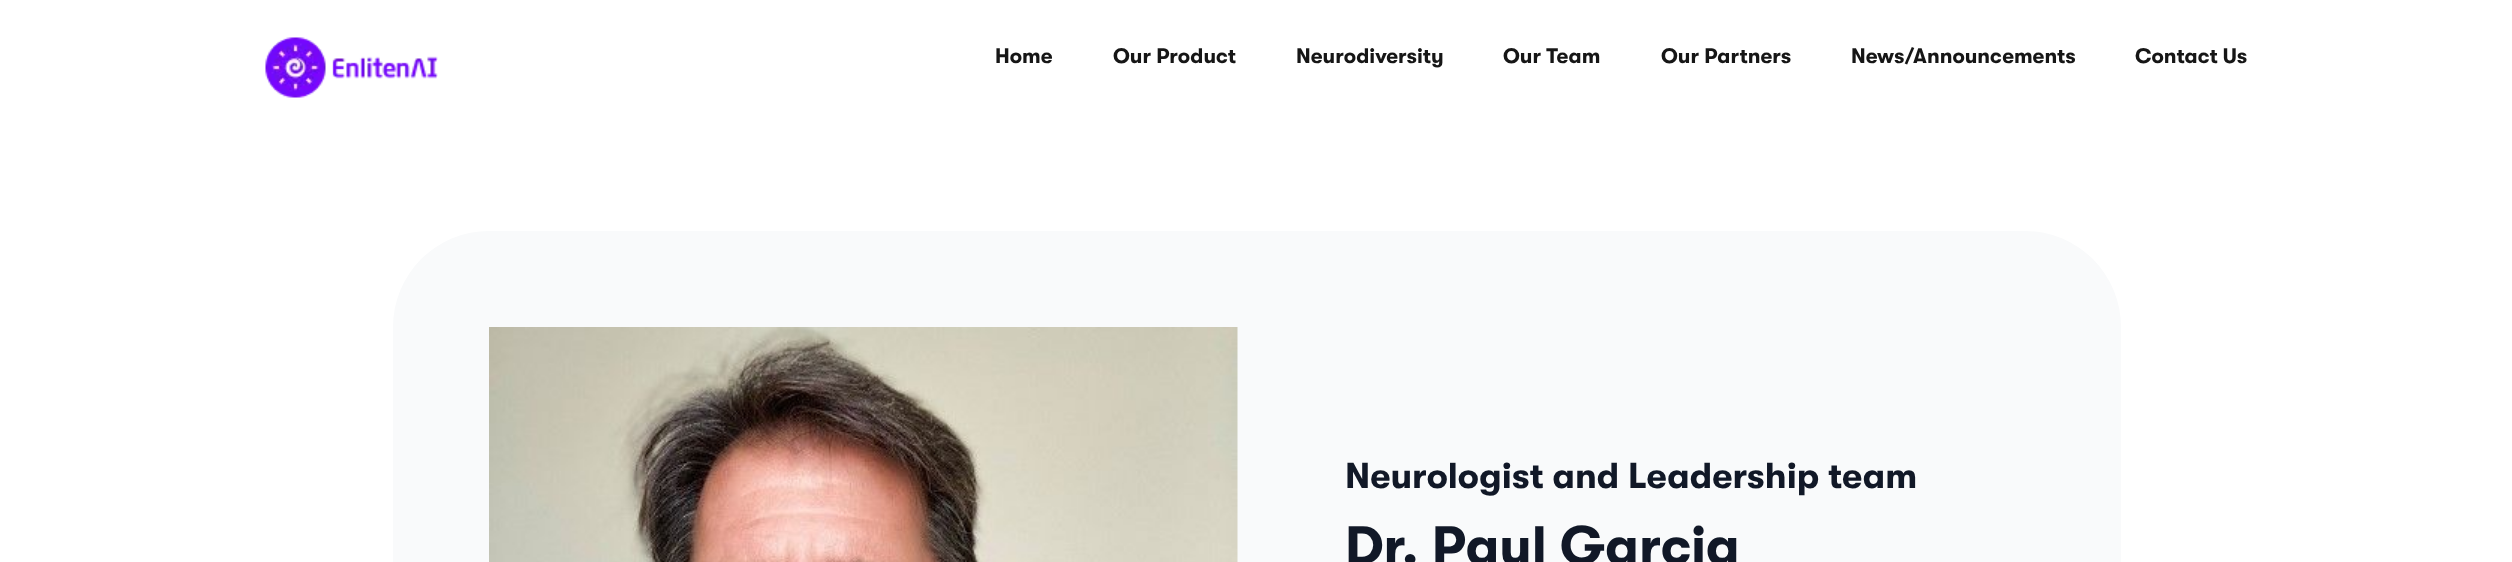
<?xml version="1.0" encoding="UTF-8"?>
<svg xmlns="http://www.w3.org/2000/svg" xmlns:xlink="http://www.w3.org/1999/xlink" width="2512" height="562">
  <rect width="100%" height="100%" fill="#ffffff" />
  <image x="265" y="37" width="173" height="61" xlink:href="image1.png" />
  <rect x="393" y="231" width="1728" height="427" rx="96" fill="#f9fafb" />
  <image x="489" y="327" width="749" height="235" xlink:href="image2.png" />
  <text x="995" y="63" style="font-family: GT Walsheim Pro; font-size: 21px; font-weight: bold; fill: #161616">Home</text>
  <text x="1113" y="63" style="font-family: GT Walsheim Pro; font-size: 21px; font-weight: bold; fill: #161616">Our Product</text>
  <text x="1296" y="63" style="font-family: GT Walsheim Pro; font-size: 21px; font-weight: bold; fill: #161616">Neurodiversity</text>
  <text x="1503" y="63" style="font-family: GT Walsheim Pro; font-size: 21px; font-weight: bold; fill: #161616">Our Team</text>
  <text x="1661" y="63" style="font-family: GT Walsheim Pro; font-size: 21px; font-weight: bold; fill: #161616">Our Partners</text>
  <text x="1851" y="63" style="font-family: GT Walsheim Pro; font-size: 21px; font-weight: bold; fill: #161616">News/Announcements</text>
  <text x="2135" y="63" style="font-family: GT Walsheim Pro; font-size: 21px; font-weight: bold; fill: #161616">Contact Us</text>
  <text x="1345" y="488" style="font-family: GT Walsheim Pro; font-size: 36px; font-weight: bold; fill: #111827">Neurologist and Leadership team</text>
  <text x="1345" y="564" style="font-family: GT Walsheim Pro; font-size: 54px; font-weight: bold; fill: #111827">Dr. Paul Garcia</text>
</svg>
